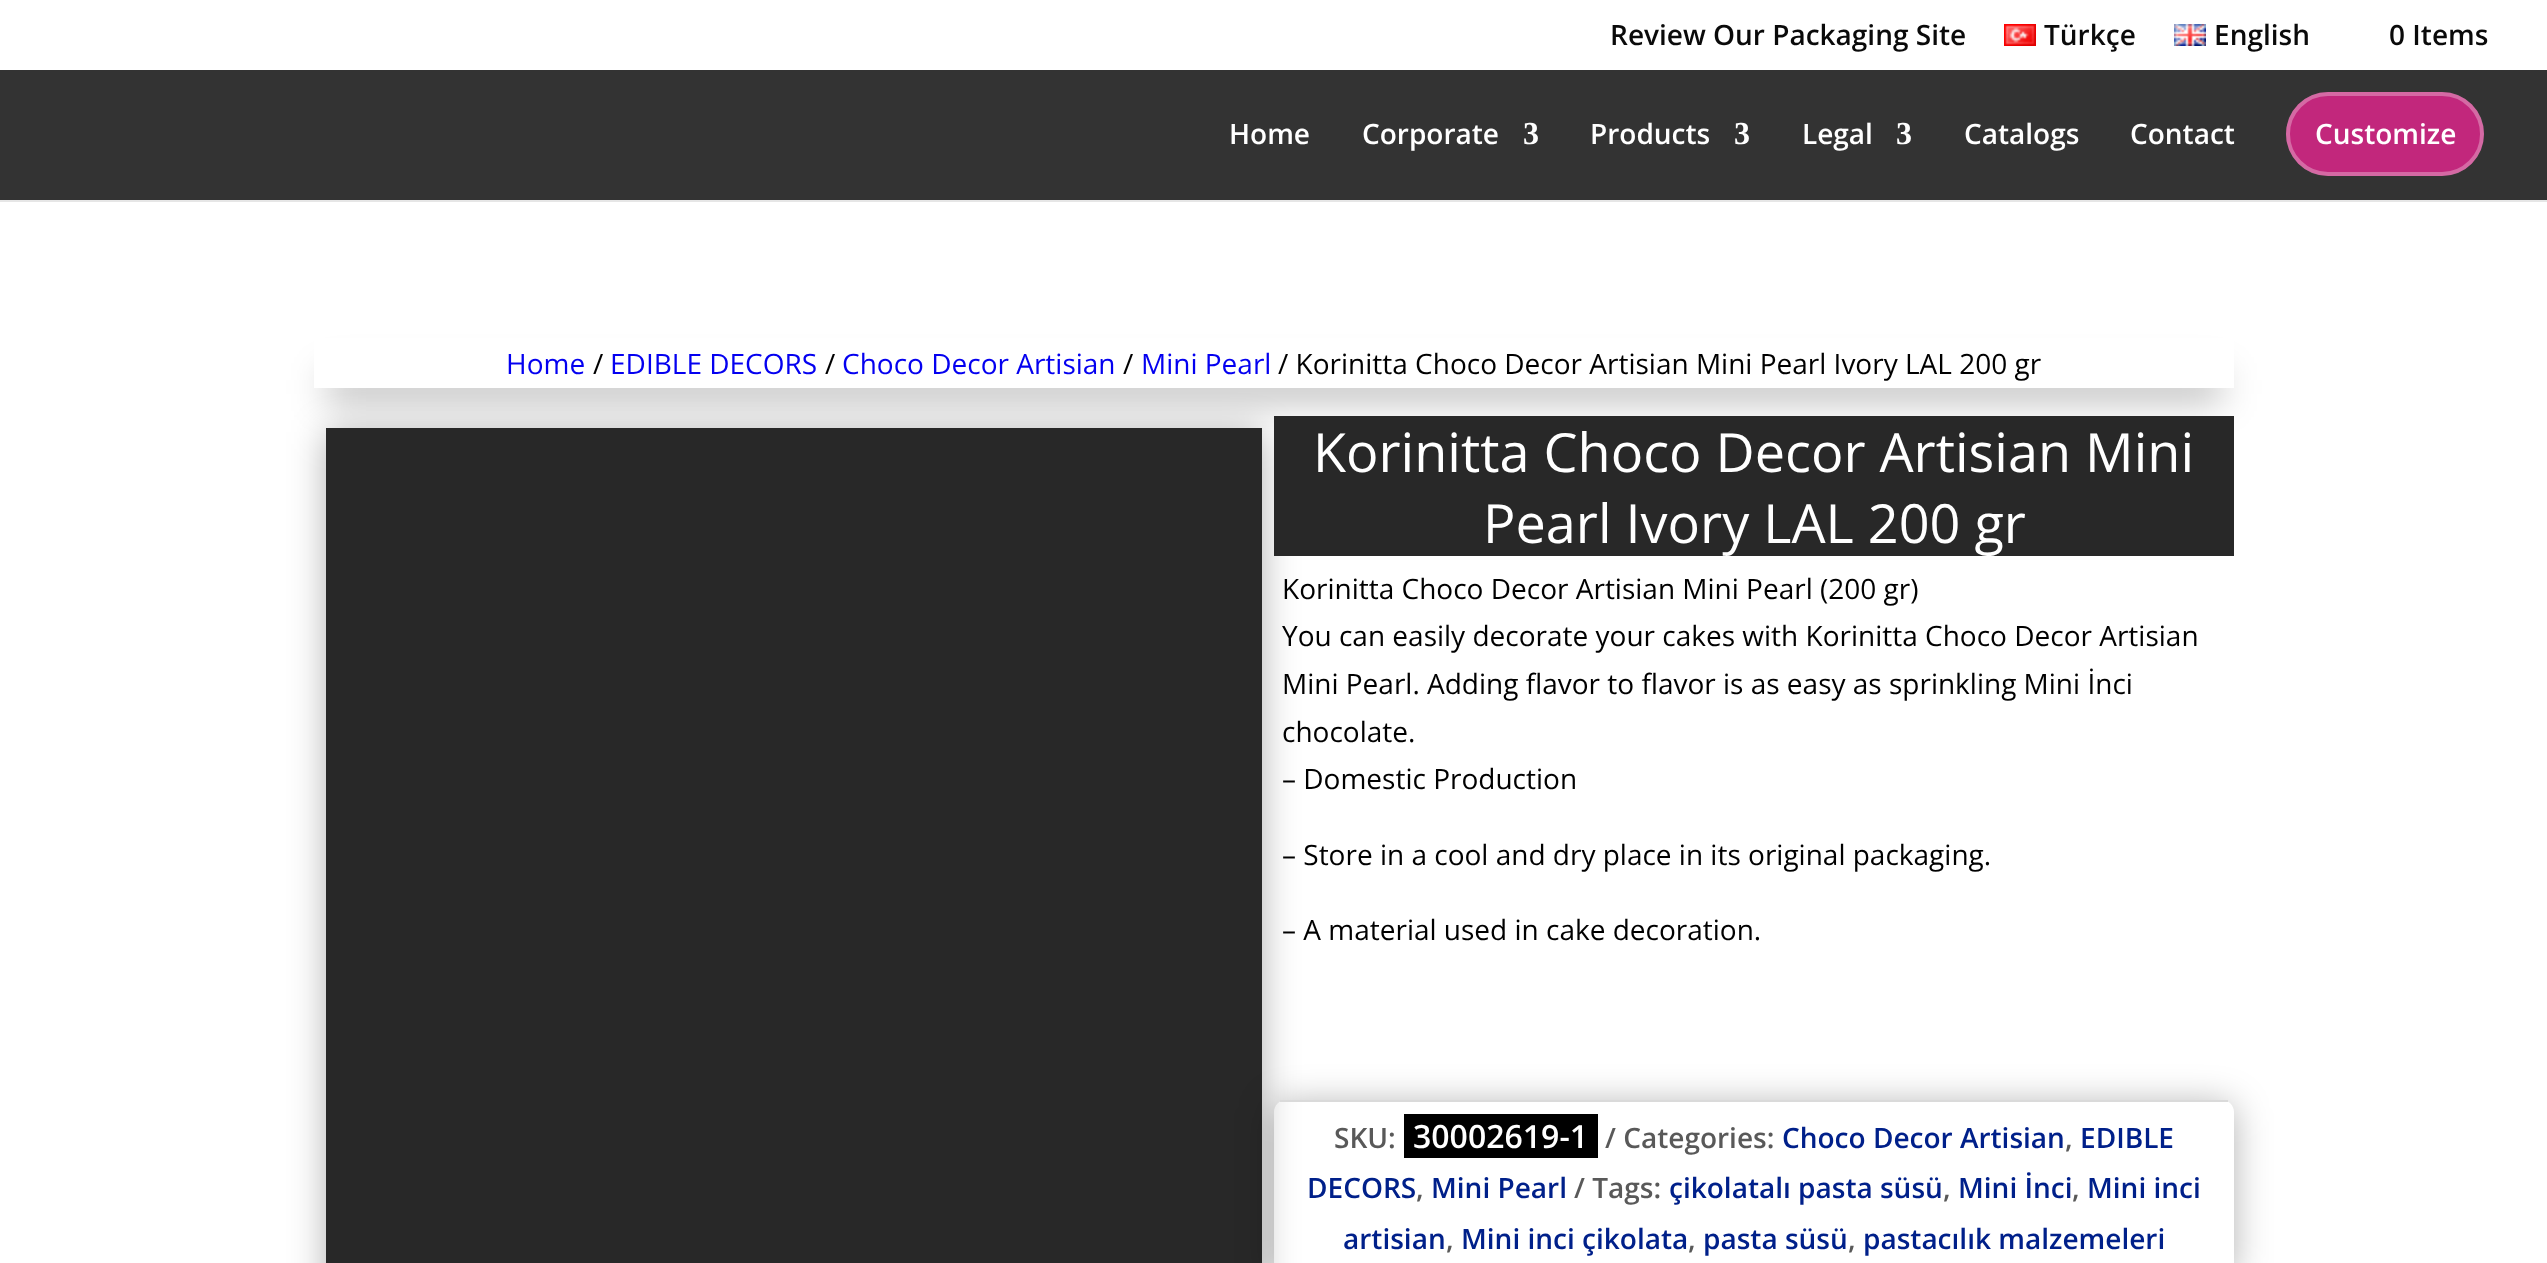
<?xml version="1.0" encoding="UTF-8"?>
<svg xmlns="http://www.w3.org/2000/svg" xmlns:xlink="http://www.w3.org/1999/xlink" width="2547" height="1263">
  <defs>
    <clipPath id="clip1"><path d="M 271 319 h 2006 v 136 h -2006 z m 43 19 h 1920 v 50 h -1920 z" clip-rule="evenodd" /></clipPath>
    <clipPath id="clip2"><path d="M 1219 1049 h 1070 v 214 h -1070 z m 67 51 h 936 c 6.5 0 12 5.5 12 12 v 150 c 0 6.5 -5.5 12 -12 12 h -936 c -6.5 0 -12 -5.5 -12 -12 v -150 c 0 -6.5 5.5 -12 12 -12 z" clip-rule="evenodd" /></clipPath>
  </defs>
  <rect width="100%" height="100%" fill="#ffffff" />
  <image x="2004" y="24" width="32" height="22" xlink:href="image1.png" />
  <image x="2174" y="24" width="32" height="22" xlink:href="image2.png" />
  <rect y="200" width="2547" height="2" fill="#e6e6e6" />
  <rect y="70" width="2547" height="130" fill="#333333" />
  <rect x="2286" y="92" width="198" height="84" rx="42" fill="#c2277c" />
  <rect x="2288" y="94" width="194" height="80" rx="40" fill="none" stroke="#ffffff" stroke-opacity="0.31" stroke-width="4" />
  <g clip-path="url(#clip1)">
    <rect x="326" y="374" width="1896" height="26" fill="#000000" fill-opacity="0.3" filter="blur(18px)" />
  </g>
  <rect x="326" y="432" width="936" height="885" fill="#000000" fill-opacity="0.3" filter="blur(18px)" />
  <rect x="326" y="428" width="936" height="835" fill="#282828" />
  <rect x="1274" y="416" width="960" height="140" fill="#282828" />
  <g clip-path="url(#clip2)">
    <rect x="1274" y="1104" width="960" height="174" rx="12" fill="#000000" fill-opacity="0.3" filter="blur(18px)" />
  </g>
  <rect x="1280" y="1100" width="948" height="2" fill="#dadada" />
  <rect x="1404" y="1114" width="194" height="44" fill="#000000" />
  <text x="1610" y="45" style="font-family: Open Sans; font-size: 28px; font-weight: 600; fill: #0a0a0a">Review Our Packaging Site</text>
  <text x="2044" y="45" style="font-family: Open Sans; font-size: 28px; font-weight: 600; fill: #0a0a0a">Türkçe</text>
  <text x="2214" y="45" style="font-family: Open Sans; font-size: 28px; font-weight: 600; fill: #0a0a0a">English</text>
  <text x="2389" y="45" style="font-family: Open Sans; font-size: 28px; font-weight: 600; fill: #0a0a0a">0 Items</text>
  <text x="1229" y="144" style="font-family: Open Sans; font-size: 28px; font-weight: 600; fill: #ffffff">Home</text>
  <text x="1362" y="144" style="font-family: Open Sans; font-size: 28px; font-weight: 600; fill: #ffffff">Corporate</text>
  <text x="1523" y="144" style="font-family: Liberation Serif; font-size: 32px; font-weight: bold; fill: #ffffff">3</text>
  <text x="1590" y="144" style="font-family: Open Sans; font-size: 28px; font-weight: 600; fill: #ffffff">Products</text>
  <text x="1734" y="144" style="font-family: Liberation Serif; font-size: 32px; font-weight: bold; fill: #ffffff">3</text>
  <text x="1802" y="144" style="font-family: Open Sans; font-size: 28px; font-weight: 600; fill: #ffffff">Legal</text>
  <text x="1896" y="144" style="font-family: Liberation Serif; font-size: 32px; font-weight: bold; fill: #ffffff">3</text>
  <text x="1964" y="144" style="font-family: Open Sans; font-size: 28px; font-weight: 600; fill: #ffffff">Catalogs</text>
  <text x="2130" y="144" style="font-family: Open Sans; font-size: 28px; font-weight: 600; fill: #ffffff">Contact</text>
  <text x="2315" y="144" style="font-family: Open Sans; font-size: 28px; font-weight: 600; fill: #ffffff">Customize</text>
  <text x="506" y="374" style="font-family: Open Sans; font-size: 28px; fill: #0400f0">Home</text>
  <text x="593" y="374" style="font-family: Open Sans; font-size: 28px; fill: #000000">/</text>
  <text x="610" y="374" style="font-family: Open Sans; font-size: 28px; fill: #0400f0">EDIBLE DECORS</text>
  <text x="825" y="374" style="font-family: Open Sans; font-size: 28px; fill: #000000">/</text>
  <text x="842" y="374" style="font-family: Open Sans; font-size: 28px; fill: #0400f0">Choco Decor Artisian</text>
  <text x="1123" y="374" style="font-family: Open Sans; font-size: 28px; fill: #000000">/</text>
  <text x="1141" y="374" style="font-family: Open Sans; font-size: 28px; fill: #0400f0">Mini Pearl</text>
  <text x="1278" y="374" style="font-family: Open Sans; font-size: 28px; fill: #000000">/ Korinitta Choco Decor Artisian Mini Pearl Ivory LAL 200 gr</text>
  <text x="1313" y="472" style="font-family: Open Sans; font-size: 54px; fill: #ffffff">Korinitta Choco Decor Artisian Mini</text>
  <text x="1483" y="543" style="font-family: Open Sans; font-size: 54px; fill: #ffffff">Pearl Ivory LAL 200 gr</text>
  <text x="1282" y="599" style="font-family: Open Sans; font-size: 28px; fill: #000000">Korinitta Choco Decor Artisian Mini Pearl (200 gr)</text>
  <text x="1282" y="646" style="font-family: Open Sans; font-size: 28px; fill: #000000">You can easily decorate your cakes with Korinitta Choco Decor Artisian</text>
  <text x="1282" y="694" style="font-family: Open Sans; font-size: 28px; fill: #000000">Mini Pearl. Adding flavor to flavor is as easy as sprinkling Mini İnci</text>
  <text x="1282" y="742" style="font-family: Open Sans; font-size: 28px; fill: #000000">chocolate.</text>
  <text x="1282" y="789" style="font-family: Open Sans; font-size: 28px; fill: #000000">– Domestic Production</text>
  <text x="1282" y="865" style="font-family: Open Sans; font-size: 28px; fill: #000000">– Store in a cool and dry place in its original packaging.</text>
  <text x="1282" y="940" style="font-family: Open Sans; font-size: 28px; fill: #000000">– A material used in cake decoration.</text>
  <text x="1334" y="1148" style="font-family: Open Sans; font-size: 28px; font-weight: 600; fill: #595959">SKU:</text>
  <text x="1413" y="1148" style="font-family: Open Sans; font-size: 32px; font-weight: 600; fill: #ffffff">30002619-1</text>
  <text x="1605" y="1148" style="font-family: Open Sans; font-size: 28px; font-weight: 600; fill: #595959">/ Categories:</text>
  <text x="1782" y="1148" style="font-family: Open Sans; font-size: 28px; font-weight: 600; fill: #00208a">Choco Decor Artisian</text>
  <text x="2065" y="1148" style="font-family: Open Sans; font-size: 28px; font-weight: 600; fill: #595959">,</text>
  <text x="2080" y="1148" style="font-family: Open Sans; font-size: 28px; font-weight: 600; fill: #00208a">EDIBLE</text>
  <text x="1307" y="1198" style="font-family: Open Sans; font-size: 28px; font-weight: 600; fill: #00208a">DECORS</text>
  <text x="1416" y="1198" style="font-family: Open Sans; font-size: 28px; font-weight: 600; fill: #595959">,</text>
  <text x="1431" y="1198" style="font-family: Open Sans; font-size: 28px; font-weight: 600; fill: #00208a">Mini Pearl</text>
  <text x="1574" y="1198" style="font-family: Open Sans; font-size: 28px; font-weight: 600; fill: #595959">/ Tags:</text>
  <text x="1669" y="1198" style="font-family: Open Sans; font-size: 28px; font-weight: 600; fill: #00208a">çikolatalı pasta süsü</text>
  <text x="1943" y="1198" style="font-family: Open Sans; font-size: 28px; font-weight: 600; fill: #595959">,</text>
  <text x="1958" y="1198" style="font-family: Open Sans; font-size: 28px; font-weight: 600; fill: #00208a">Mini İnci</text>
  <text x="2072" y="1198" style="font-family: Open Sans; font-size: 28px; font-weight: 600; fill: #595959">,</text>
  <text x="2087" y="1198" style="font-family: Open Sans; font-size: 28px; font-weight: 600; fill: #00208a">Mini inci</text>
  <text x="1343" y="1249" style="font-family: Open Sans; font-size: 28px; font-weight: 600; fill: #00208a">artisian</text>
  <text x="1446" y="1249" style="font-family: Open Sans; font-size: 28px; font-weight: 600; fill: #595959">,</text>
  <text x="1461" y="1249" style="font-family: Open Sans; font-size: 28px; font-weight: 600; fill: #00208a">Mini inci çikolata</text>
  <text x="1688" y="1249" style="font-family: Open Sans; font-size: 28px; font-weight: 600; fill: #595959">,</text>
  <text x="1703" y="1249" style="font-family: Open Sans; font-size: 28px; font-weight: 600; fill: #00208a">pasta süsü</text>
  <text x="1848" y="1249" style="font-family: Open Sans; font-size: 28px; font-weight: 600; fill: #595959">,</text>
  <text x="1863" y="1249" style="font-family: Open Sans; font-size: 28px; font-weight: 600; fill: #00208a">pastacılık malzemeleri</text>
</svg>
